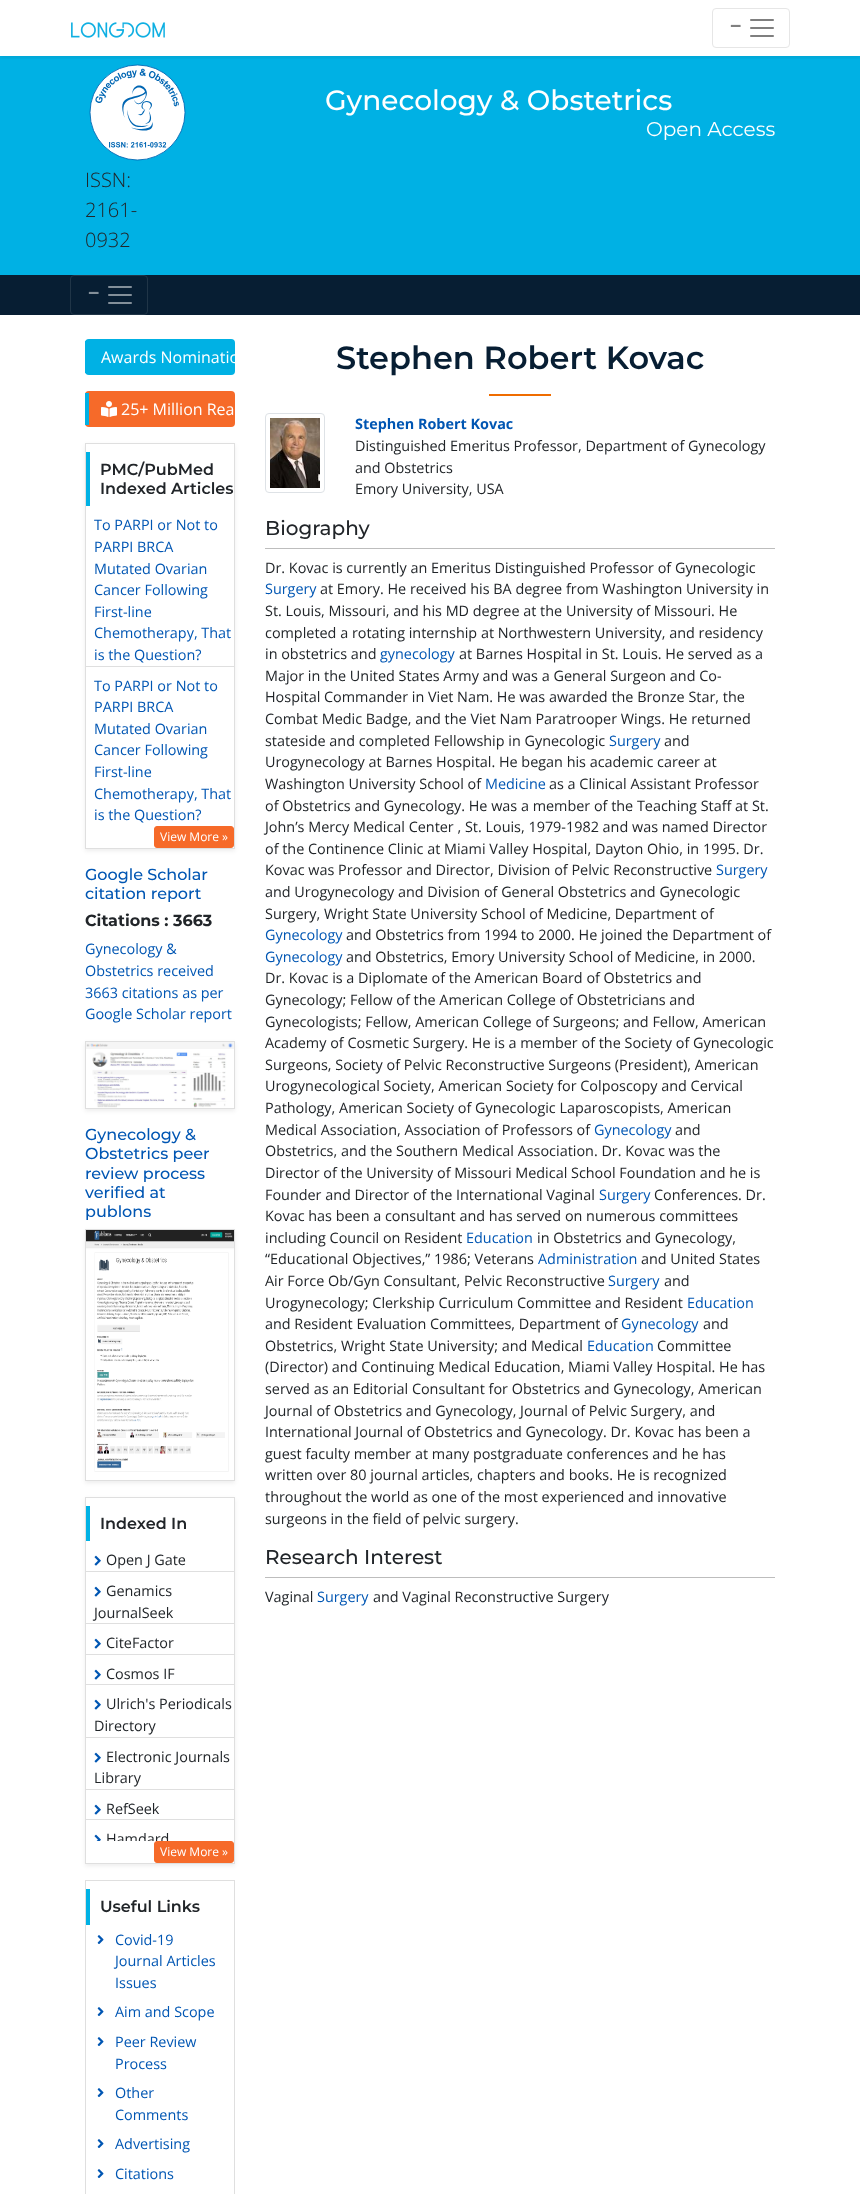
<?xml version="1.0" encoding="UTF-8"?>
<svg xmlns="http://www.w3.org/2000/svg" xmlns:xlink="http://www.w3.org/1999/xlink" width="860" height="2194">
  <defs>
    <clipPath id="clip1"><rect x="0" y="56" width="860" height="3" /></clipPath>
    <clipPath id="clip2"><path d="M 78 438 h 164 v 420 h -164 z m 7 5 h 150 v 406 h -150 z" clip-rule="evenodd" /></clipPath>
    <clipPath id="clip3"><path d="M 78 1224 h 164 v 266 h -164 z m 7 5 h 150 v 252 h -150 z" clip-rule="evenodd" /></clipPath>
    <clipPath id="clip4"><path d="M 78 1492 h 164 v 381 h -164 z m 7 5 h 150 v 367 h -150 z" clip-rule="evenodd" /></clipPath>
    <clipPath id="clip5"><rect x="86" y="1541" width="148" height="300" /></clipPath>
  </defs>
  <rect width="100%" height="100%" fill="#ffffff" />
  <rect y="56" width="860" height="219" fill="#00b1e4" />
  <g clip-path="url(#clip1)">
    <rect y="2" width="860" height="56" fill="#000000" fill-opacity="0.07" filter="blur(2px)" />
  </g>
  <image x="71" y="22" width="94" height="16" xlink:href="image1.png" />
  <rect x="712.5" y="8.5" width="77" height="39" rx="3.5" fill="none" stroke="#e6e6e6" />
  <image x="750" y="19" width="24" height="18" xlink:href="image2.png" />
  <image x="89" y="64" width="97" height="97" xlink:href="image3.png" />
  <rect y="275" width="860" height="40" fill="#071e33" />
  <rect x="70.5" y="275.5" width="77" height="39" rx="3.5" fill="none" stroke="#203547" />
  <image x="108" y="286" width="24" height="18" xlink:href="image4.png" />
  <rect x="85" y="339" width="150" height="36" rx="4" fill="#00b1e4" />
  <rect x="85" y="341" width="1" height="32" fill="#00b1e4" />
  <rect x="85" y="391" width="150" height="36" rx="4" fill="#f66a29" />
  <rect x="85" y="393" width="4" height="32" fill="#00b1e4" />
  <image x="101" y="401" width="16" height="16" xlink:href="image5.png" />
  <g clip-path="url(#clip2)">
    <rect x="85" y="445" width="150" height="406" fill="#000000" fill-opacity="0.07" filter="blur(2px)" />
  </g>
  <rect x="85.5" y="443.5" width="149" height="405" fill="none" stroke="#dfdfdf" />
  <rect x="86" y="452" width="4" height="54" fill="#00b1e4" />
  <rect x="86" y="666" width="148" height="1" fill="#dfdfdf" />
  <rect x="154.5" y="826.5" width="79" height="21" rx="2.5" fill="#f66a29" stroke="#f66a29" />
  <rect x="85" y="1043" width="150" height="68" fill="#000000" fill-opacity="0.07" filter="blur(2px)" />
  <rect x="85.5" y="1041.5" width="149" height="67" fill="none" stroke="#dfdfdf" />
  <image x="86" y="1042" width="148" height="66" xlink:href="image6.png" />
  <g clip-path="url(#clip3)">
    <rect x="85" y="1231" width="150" height="252" fill="#000000" fill-opacity="0.07" filter="blur(2px)" />
  </g>
  <rect x="85.5" y="1229.5" width="149" height="251" fill="none" stroke="#dfdfdf" />
  <image x="86" y="1230" width="148" height="242" xlink:href="image7.png" />
  <g clip-path="url(#clip4)">
    <rect x="85" y="1499" width="150" height="367" fill="#000000" fill-opacity="0.07" filter="blur(2px)" />
  </g>
  <rect x="85.5" y="1497.5" width="149" height="366" fill="none" stroke="#dfdfdf" />
  <rect x="86" y="1506" width="4" height="35" fill="#00b1e4" />
  <image x="94" y="1555" width="7" height="11" xlink:href="image8.png" />
  <rect x="86" y="1571" width="148" height="1" fill="#dfdfdf" />
  <image x="94" y="1586" width="7" height="11" xlink:href="image8.png" />
  <rect x="86" y="1623" width="148" height="1" fill="#dfdfdf" />
  <image x="94" y="1638" width="7" height="11" xlink:href="image8.png" />
  <rect x="86" y="1654" width="148" height="1" fill="#dfdfdf" />
  <image x="94" y="1669" width="7" height="11" xlink:href="image8.png" />
  <rect x="86" y="1684" width="148" height="1" fill="#dfdfdf" />
  <image x="94" y="1699" width="7" height="11" xlink:href="image8.png" />
  <rect x="86" y="1737" width="148" height="1" fill="#dfdfdf" />
  <image x="94" y="1752" width="7" height="11" xlink:href="image8.png" />
  <rect x="86" y="1789" width="148" height="1" fill="#dfdfdf" />
  <image x="94" y="1804" width="7" height="11" xlink:href="image8.png" />
  <rect x="86" y="1819" width="148" height="1" fill="#dfdfdf" />
  <image x="94" y="1834" width="7" height="7" xlink:href="image9.png" />
  <rect x="154.5" y="1841.5" width="79" height="21" rx="2.5" fill="#f66a29" stroke="#f66a29" />
  <rect x="85.5" y="1880.5" width="149" height="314" fill="none" stroke="#dfdfdf" />
  <rect x="86" y="1889" width="4" height="36" fill="#00b1e4" />
  <image x="97" y="1935" width="7" height="9" xlink:href="image10.png" />
  <image x="97" y="2007" width="7" height="9" xlink:href="image10.png" />
  <image x="97" y="2037" width="7" height="9" xlink:href="image10.png" />
  <image x="97" y="2088" width="7" height="9" xlink:href="image10.png" />
  <image x="97" y="2139" width="7" height="9" xlink:href="image10.png" />
  <image x="97" y="2169" width="7" height="9" xlink:href="image10.png" />
  <rect x="489" y="394" width="62" height="2" fill="#ef6c00" />
  <rect x="265.5" y="413.5" width="59" height="79" rx="3.5" fill="none" stroke="#dee2e6" />
  <image x="270" y="418" width="50" height="70" xlink:href="image11.png" />
  <rect x="265" y="548" width="510" height="1" fill="#bdbdbd" />
  <rect x="265" y="1577" width="510" height="1" fill="#bdbdbd" />
  <text x="730" y="33" style="font-family: Open Sans; font-size: 20px; font-weight: bold; fill: #808080">−</text>
  <text x="325" y="110" style="font-family: Montserrat; font-size: 28px; font-weight: 500; fill: #ffffff">Gynecology &amp; Obstetrics</text>
  <text x="646" y="136" style="font-family: Montserrat; font-size: 20px; fill: #ffffff">Open Access</text>
  <text x="85" y="187" style="font-family: Open Sans; font-size: 20px; font-weight: 300; fill: #212529">ISSN:</text>
  <text x="85" y="217" style="font-family: Open Sans; font-size: 20px; font-weight: 300; fill: #212529">2161-</text>
  <text x="85" y="247" style="font-family: Open Sans; font-size: 20px; font-weight: 300; fill: #212529">0932</text>
  <text x="88" y="300" style="font-family: Open Sans; font-size: 20px; font-weight: bold; fill: #838f99">−</text>
  <text x="101" y="363" style="font-family: Open Sans; font-size: 16px; fill: #ffffff">Awards Nominatio</text>
  <text x="121" y="415" style="font-family: Open Sans; font-size: 16px; fill: #ffffff">25+ Million Rea</text>
  <text x="100" y="475" style="font-family: Montserrat; font-size: 16px; font-weight: 600; fill: #212529">PMC/PubMed</text>
  <text x="100" y="494" style="font-family: Montserrat; font-size: 16px; font-weight: 600; fill: #212529">Indexed Articles</text>
  <text x="94" y="530" style="font-family: Open Sans; font-size: 14.4px; fill: #0056b3">To PARPI or Not to</text>
  <text x="94" y="552" style="font-family: Open Sans; font-size: 14.4px; fill: #0056b3">PARPI BRCA</text>
  <text x="94" y="574" style="font-family: Open Sans; font-size: 14.4px; fill: #0056b3">Mutated Ovarian</text>
  <text x="94" y="595" style="font-family: Open Sans; font-size: 14.4px; fill: #0056b3">Cancer Following</text>
  <text x="94" y="617" style="font-family: Open Sans; font-size: 14.4px; fill: #0056b3">First-line</text>
  <text x="94" y="638" style="font-family: Open Sans; font-size: 14.4px; fill: #0056b3">Chemotherapy, That</text>
  <text x="94" y="660" style="font-family: Open Sans; font-size: 14.4px; fill: #0056b3">is the Question?</text>
  <text x="94" y="691" style="font-family: Open Sans; font-size: 14.4px; fill: #0056b3">To PARPI or Not to</text>
  <text x="94" y="712" style="font-family: Open Sans; font-size: 14.4px; fill: #0056b3">PARPI BRCA</text>
  <text x="94" y="734" style="font-family: Open Sans; font-size: 14.4px; fill: #0056b3">Mutated Ovarian</text>
  <text x="94" y="755" style="font-family: Open Sans; font-size: 14.4px; fill: #0056b3">Cancer Following</text>
  <text x="94" y="777" style="font-family: Open Sans; font-size: 14.4px; fill: #0056b3">First-line</text>
  <text x="94" y="799" style="font-family: Open Sans; font-size: 14.4px; fill: #0056b3">Chemotherapy, That</text>
  <text x="94" y="820" style="font-family: Open Sans; font-size: 14.4px; fill: #0056b3">is the Question?</text>
  <text x="160" y="841" style="font-family: Open Sans; font-size: 12px; fill: #ffffff">View More »</text>
  <text x="85" y="880" style="font-family: Montserrat; font-size: 16px; font-weight: 500; fill: #0056b3">Google Scholar</text>
  <text x="85" y="899" style="font-family: Montserrat; font-size: 16px; font-weight: 500; fill: #0056b3">citation report</text>
  <text x="85" y="926" style="font-family: Montserrat; font-size: 16px; font-weight: bold; fill: #212529">Citations : 3663</text>
  <text x="85" y="954" style="font-family: Open Sans; font-size: 14.4px; fill: #0056b3">Gynecology &amp;</text>
  <text x="85" y="976" style="font-family: Open Sans; font-size: 14.4px; fill: #0056b3">Obstetrics received</text>
  <text x="85" y="998" style="font-family: Open Sans; font-size: 14.4px; fill: #0056b3">3663 citations as per</text>
  <text x="85" y="1019" style="font-family: Open Sans; font-size: 14.4px; fill: #0056b3">Google Scholar report</text>
  <text x="85" y="1140" style="font-family: Montserrat; font-size: 16px; font-weight: 500; fill: #0056b3">Gynecology &amp;</text>
  <text x="85" y="1159" style="font-family: Montserrat; font-size: 16px; font-weight: 500; fill: #0056b3">Obstetrics peer</text>
  <text x="85" y="1179" style="font-family: Montserrat; font-size: 16px; font-weight: 500; fill: #0056b3">review process</text>
  <text x="85" y="1198" style="font-family: Montserrat; font-size: 16px; font-weight: 500; fill: #0056b3">verified at</text>
  <text x="85" y="1217" style="font-family: Montserrat; font-size: 16px; font-weight: 500; fill: #0056b3">publons</text>
  <text x="100" y="1529" style="font-family: Montserrat; font-size: 16px; font-weight: 600; fill: #212529">Indexed In</text>
  <text x="106" y="1565" style="font-family: Open Sans; font-size: 14.4px; fill: #212529">Open J Gate</text>
  <text x="106" y="1596" style="font-family: Open Sans; font-size: 14.4px; fill: #212529">Genamics</text>
  <text x="94" y="1618" style="font-family: Open Sans; font-size: 14.4px; fill: #212529">JournalSeek</text>
  <text x="106" y="1648" style="font-family: Open Sans; font-size: 14.4px; fill: #212529">CiteFactor</text>
  <text x="106" y="1679" style="font-family: Open Sans; font-size: 14.4px; fill: #212529">Cosmos IF</text>
  <text x="106" y="1709" style="font-family: Open Sans; font-size: 14.4px; fill: #212529">Ulrich's Periodicals</text>
  <text x="94" y="1731" style="font-family: Open Sans; font-size: 14.4px; fill: #212529">Directory</text>
  <text x="106" y="1762" style="font-family: Open Sans; font-size: 14.4px; fill: #212529">Electronic Journals</text>
  <text x="94" y="1783" style="font-family: Open Sans; font-size: 14.4px; fill: #212529">Library</text>
  <text x="106" y="1814" style="font-family: Open Sans; font-size: 14.4px; fill: #212529">RefSeek</text>
  <g clip-path="url(#clip5)">
    <text x="106" y="1844" style="font-family: Open Sans; font-size: 14.4px; fill: #212529">Hamdard</text>
  </g>
  <text x="160" y="1856" style="font-family: Open Sans; font-size: 12px; fill: #ffffff">View More »</text>
  <text x="100" y="1912" style="font-family: Montserrat; font-size: 16px; font-weight: 600; fill: #212529">Useful Links</text>
  <text x="115" y="1945" style="font-family: Open Sans; font-size: 14.4px; fill: #0056b3">Covid-19</text>
  <text x="115" y="1966" style="font-family: Open Sans; font-size: 14.4px; fill: #0056b3">Journal Articles</text>
  <text x="115" y="1988" style="font-family: Open Sans; font-size: 14.4px; fill: #0056b3">Issues</text>
  <text x="115" y="2017" style="font-family: Open Sans; font-size: 14.4px; fill: #0056b3">Aim and Scope</text>
  <text x="115" y="2047" style="font-family: Open Sans; font-size: 14.4px; fill: #0056b3">Peer Review</text>
  <text x="115" y="2069" style="font-family: Open Sans; font-size: 14.4px; fill: #0056b3">Process</text>
  <text x="115" y="2098" style="font-family: Open Sans; font-size: 14.4px; fill: #0056b3">Other</text>
  <text x="115" y="2120" style="font-family: Open Sans; font-size: 14.4px; fill: #0056b3">Comments</text>
  <text x="115" y="2149" style="font-family: Open Sans; font-size: 14.4px; fill: #0056b3">Advertising</text>
  <text x="115" y="2179" style="font-family: Open Sans; font-size: 14.4px; fill: #0056b3">Citations</text>
  <text x="336" y="369" style="font-family: Montserrat; font-size: 32px; font-weight: 600; fill: #071e33">Stephen Robert Kovac</text>
  <text x="355" y="429" style="font-family: Open Sans; font-size: 14.4px; font-weight: bold; fill: #0056b3">Stephen Robert Kovac</text>
  <text x="355" y="451" style="font-family: Open Sans; font-size: 14.4px; fill: #212529">Distinguished Emeritus Professor, Department of Gynecology</text>
  <text x="355" y="473" style="font-family: Open Sans; font-size: 14.4px; fill: #212529">and Obstetrics</text>
  <text x="355" y="494" style="font-family: Open Sans; font-size: 14.4px; fill: #212529">Emory University, USA</text>
  <text x="265" y="535" style="font-family: Montserrat; font-size: 20px; font-weight: 500; fill: #212529">Biography</text>
  <text x="265" y="573" style="font-family: Open Sans; font-size: 14.4px; fill: #212529">Dr. Kovac is currently an Emeritus Distinguished Professor of Gynecologic</text>
  <text x="265" y="594" style="font-family: Open Sans; font-size: 14.4px; fill: #0056b3">Surgery</text>
  <text x="320" y="594" style="font-family: Open Sans; font-size: 14.4px; fill: #212529">at Emory. He received his BA degree from Washington University in</text>
  <text x="265" y="616" style="font-family: Open Sans; font-size: 14.4px; fill: #212529">St. Louis, Missouri, and his MD degree at the University of Missouri. He</text>
  <text x="265" y="638" style="font-family: Open Sans; font-size: 14.4px; fill: #212529">completed a rotating internship at Northwestern University, and residency</text>
  <text x="265" y="659" style="font-family: Open Sans; font-size: 14.4px; fill: #212529">in obstetrics and</text>
  <text x="380" y="659" style="font-family: Open Sans; font-size: 14.4px; fill: #0056b3">gynecology</text>
  <text x="459" y="659" style="font-family: Open Sans; font-size: 14.4px; fill: #212529">at Barnes Hospital in St. Louis. He served as a</text>
  <text x="265" y="681" style="font-family: Open Sans; font-size: 14.4px; fill: #212529">Major in the United States Army and was a General Surgeon and Co-</text>
  <text x="265" y="702" style="font-family: Open Sans; font-size: 14.4px; fill: #212529">Hospital Commander in Viet Nam. He was awarded the Bronze Star, the</text>
  <text x="265" y="724" style="font-family: Open Sans; font-size: 14.4px; fill: #212529">Combat Medic Badge, and the Viet Nam Paratrooper Wings. He returned</text>
  <text x="265" y="746" style="font-family: Open Sans; font-size: 14.4px; fill: #212529">stateside and completed Fellowship in Gynecologic</text>
  <text x="609" y="746" style="font-family: Open Sans; font-size: 14.4px; fill: #0056b3">Surgery</text>
  <text x="664" y="746" style="font-family: Open Sans; font-size: 14.4px; fill: #212529">and</text>
  <text x="265" y="767" style="font-family: Open Sans; font-size: 14.4px; fill: #212529">Urogynecology at Barnes Hospital. He began his academic career at</text>
  <text x="265" y="789" style="font-family: Open Sans; font-size: 14.4px; fill: #212529">Washington University School of</text>
  <text x="485" y="789" style="font-family: Open Sans; font-size: 14.4px; fill: #0056b3">Medicine</text>
  <text x="549" y="789" style="font-family: Open Sans; font-size: 14.4px; fill: #212529">as a Clinical Assistant Professor</text>
  <text x="265" y="811" style="font-family: Open Sans; font-size: 14.4px; fill: #212529">of Obstetrics and Gynecology. He was a member of the Teaching Staff at St.</text>
  <text x="265" y="832" style="font-family: Open Sans; font-size: 14.4px; fill: #212529">John’s Mercy Medical Center , St. Louis, 1979-1982 and was named Director</text>
  <text x="265" y="854" style="font-family: Open Sans; font-size: 14.4px; fill: #212529">of the Continence Clinic at Miami Valley Hospital, Dayton Ohio, in 1995. Dr.</text>
  <text x="265" y="875" style="font-family: Open Sans; font-size: 14.4px; fill: #212529">Kovac was Professor and Director, Division of Pelvic Reconstructive</text>
  <text x="716" y="875" style="font-family: Open Sans; font-size: 14.4px; fill: #0056b3">Surgery</text>
  <text x="265" y="897" style="font-family: Open Sans; font-size: 14.4px; fill: #212529">and Urogynecology and Division of General Obstetrics and Gynecologic</text>
  <text x="265" y="919" style="font-family: Open Sans; font-size: 14.4px; fill: #212529">Surgery, Wright State University School of Medicine, Department of</text>
  <text x="265" y="940" style="font-family: Open Sans; font-size: 14.4px; fill: #0056b3">Gynecology</text>
  <text x="346" y="940" style="font-family: Open Sans; font-size: 14.4px; fill: #212529">and Obstetrics from 1994 to 2000. He joined the Department of</text>
  <text x="265" y="962" style="font-family: Open Sans; font-size: 14.4px; fill: #0056b3">Gynecology</text>
  <text x="346" y="962" style="font-family: Open Sans; font-size: 14.4px; fill: #212529">and Obstetrics, Emory University School of Medicine, in 2000.</text>
  <text x="265" y="983" style="font-family: Open Sans; font-size: 14.4px; fill: #212529">Dr. Kovac is a Diplomate of the American Board of Obstetrics and</text>
  <text x="265" y="1005" style="font-family: Open Sans; font-size: 14.4px; fill: #212529">Gynecology; Fellow of the American College of Obstetricians and</text>
  <text x="265" y="1027" style="font-family: Open Sans; font-size: 14.4px; fill: #212529">Gynecologists; Fellow, American College of Surgeons; and Fellow, American</text>
  <text x="265" y="1048" style="font-family: Open Sans; font-size: 14.4px; fill: #212529">Academy of Cosmetic Surgery. He is a member of the Society of Gynecologic</text>
  <text x="265" y="1070" style="font-family: Open Sans; font-size: 14.4px; fill: #212529">Surgeons, Society of Pelvic Reconstructive Surgeons (President), American</text>
  <text x="265" y="1091" style="font-family: Open Sans; font-size: 14.4px; fill: #212529">Urogynecological Society, American Society for Colposcopy and Cervical</text>
  <text x="265" y="1113" style="font-family: Open Sans; font-size: 14.4px; fill: #212529">Pathology, American Society of Gynecologic Laparoscopists, American</text>
  <text x="265" y="1135" style="font-family: Open Sans; font-size: 14.4px; fill: #212529">Medical Association, Association of Professors of</text>
  <text x="594" y="1135" style="font-family: Open Sans; font-size: 14.4px; fill: #0056b3">Gynecology</text>
  <text x="675" y="1135" style="font-family: Open Sans; font-size: 14.4px; fill: #212529">and</text>
  <text x="265" y="1156" style="font-family: Open Sans; font-size: 14.4px; fill: #212529">Obstetrics, and the Southern Medical Association. Dr. Kovac was the</text>
  <text x="265" y="1178" style="font-family: Open Sans; font-size: 14.4px; fill: #212529">Director of the University of Missouri Medical School Foundation and he is</text>
  <text x="265" y="1200" style="font-family: Open Sans; font-size: 14.4px; fill: #212529">Founder and Director of the International Vaginal</text>
  <text x="599" y="1200" style="font-family: Open Sans; font-size: 14.4px; fill: #0056b3">Surgery</text>
  <text x="654" y="1200" style="font-family: Open Sans; font-size: 14.4px; fill: #212529">Conferences. Dr.</text>
  <text x="265" y="1221" style="font-family: Open Sans; font-size: 14.4px; fill: #212529">Kovac has been a consultant and has served on numerous committees</text>
  <text x="265" y="1243" style="font-family: Open Sans; font-size: 14.4px; fill: #212529">including Council on Resident</text>
  <text x="466" y="1243" style="font-family: Open Sans; font-size: 14.4px; fill: #0056b3">Education</text>
  <text x="537" y="1243" style="font-family: Open Sans; font-size: 14.4px; fill: #212529">in Obstetrics and Gynecology,</text>
  <text x="265" y="1264" style="font-family: Open Sans; font-size: 14.4px; fill: #212529">“Educational Objectives,” 1986; Veterans</text>
  <text x="538" y="1264" style="font-family: Open Sans; font-size: 14.4px; fill: #0056b3">Administration</text>
  <text x="641" y="1264" style="font-family: Open Sans; font-size: 14.4px; fill: #212529">and United States</text>
  <text x="265" y="1286" style="font-family: Open Sans; font-size: 14.4px; fill: #212529">Air Force Ob/Gyn Consultant, Pelvic Reconstructive</text>
  <text x="608" y="1286" style="font-family: Open Sans; font-size: 14.4px; fill: #0056b3">Surgery</text>
  <text x="664" y="1286" style="font-family: Open Sans; font-size: 14.4px; fill: #212529">and</text>
  <text x="265" y="1308" style="font-family: Open Sans; font-size: 14.4px; fill: #212529">Urogynecology; Clerkship Curriculum Committee and Resident</text>
  <text x="687" y="1308" style="font-family: Open Sans; font-size: 14.4px; fill: #0056b3">Education</text>
  <text x="265" y="1329" style="font-family: Open Sans; font-size: 14.4px; fill: #212529">and Resident Evaluation Committees, Department of</text>
  <text x="621" y="1329" style="font-family: Open Sans; font-size: 14.4px; fill: #0056b3">Gynecology</text>
  <text x="703" y="1329" style="font-family: Open Sans; font-size: 14.4px; fill: #212529">and</text>
  <text x="265" y="1351" style="font-family: Open Sans; font-size: 14.4px; fill: #212529">Obstetrics, Wright State University; and Medical</text>
  <text x="587" y="1351" style="font-family: Open Sans; font-size: 14.4px; fill: #0056b3">Education</text>
  <text x="657" y="1351" style="font-family: Open Sans; font-size: 14.4px; fill: #212529">Committee</text>
  <text x="265" y="1372" style="font-family: Open Sans; font-size: 14.4px; fill: #212529">(Director) and Continuing Medical Education, Miami Valley Hospital. He has</text>
  <text x="265" y="1394" style="font-family: Open Sans; font-size: 14.4px; fill: #212529">served as an Editorial Consultant for Obstetrics and Gynecology, American</text>
  <text x="265" y="1416" style="font-family: Open Sans; font-size: 14.4px; fill: #212529">Journal of Obstetrics and Gynecology, Journal of Pelvic Surgery, and</text>
  <text x="265" y="1437" style="font-family: Open Sans; font-size: 14.4px; fill: #212529">International Journal of Obstetrics and Gynecology. Dr. Kovac has been a</text>
  <text x="265" y="1459" style="font-family: Open Sans; font-size: 14.4px; fill: #212529">guest faculty member at many postgraduate conferences and he has</text>
  <text x="265" y="1480" style="font-family: Open Sans; font-size: 14.4px; fill: #212529">written over 80 journal articles, chapters and books. He is recognized</text>
  <text x="265" y="1502" style="font-family: Open Sans; font-size: 14.4px; fill: #212529">throughout the world as one of the most experienced and innovative</text>
  <text x="265" y="1524" style="font-family: Open Sans; font-size: 14.4px; fill: #212529">surgeons in the field of pelvic surgery.</text>
  <text x="265" y="1564" style="font-family: Montserrat; font-size: 20px; font-weight: 500; fill: #212529">Research Interest</text>
  <text x="265" y="1602" style="font-family: Open Sans; font-size: 14.4px; fill: #212529">Vaginal</text>
  <text x="317" y="1602" style="font-family: Open Sans; font-size: 14.4px; fill: #0056b3">Surgery</text>
  <text x="373" y="1602" style="font-family: Open Sans; font-size: 14.4px; fill: #212529">and Vaginal Reconstructive Surgery</text>
</svg>
